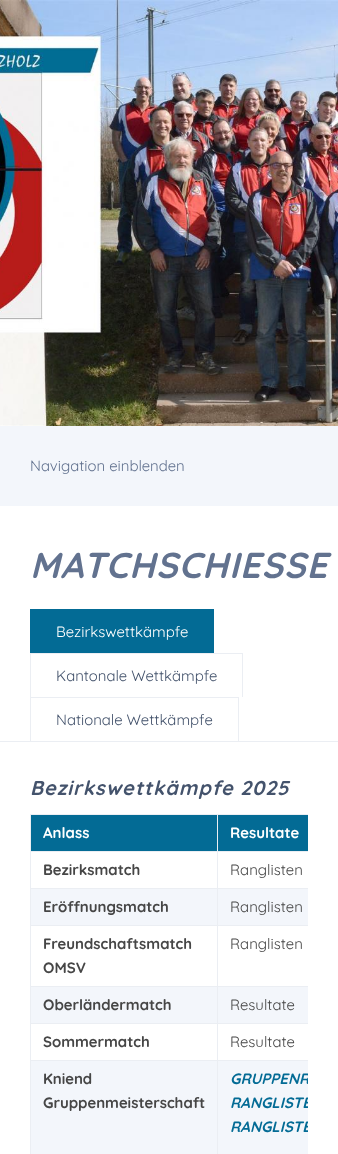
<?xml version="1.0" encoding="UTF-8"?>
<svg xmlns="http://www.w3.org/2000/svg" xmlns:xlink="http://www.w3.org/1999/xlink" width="338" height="1154">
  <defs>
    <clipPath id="clip1"><rect x="30" y="814" width="278" height="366" /></clipPath>
  </defs>
  <rect width="100%" height="100%" fill="#ffffff" />
  <image x="0" y="0" width="338" height="426" xlink:href="image1.png" />
  <rect y="426" width="338" height="80" fill="#f3f6fb" />
  <rect x="30" y="609" width="184" height="44" fill="#036b95" />
  <rect x="30" y="653" width="213" height="1" fill="#ebeef3" />
  <rect x="242" y="653" width="1" height="44" fill="#ebeef3" />
  <rect x="30" y="653" width="1" height="44" fill="#ebeef3" />
  <rect x="30" y="697" width="209" height="1" fill="#ebeef3" />
  <rect x="238" y="697" width="1" height="44" fill="#ebeef3" />
  <rect x="30" y="697" width="1" height="44" fill="#ebeef3" />
  <rect y="741" width="338" height="1" fill="#ebeef3" />
  <rect x="31" y="815" width="186" height="36" fill="#036b95" />
  <rect x="217" y="814" width="91" height="1" fill="#ebeef3" />
  <rect x="217" y="851" width="91" height="1" fill="#ebeef3" />
  <rect x="217" y="888" width="91" height="1" fill="#ebeef3" />
  <rect x="217" y="925" width="91" height="1" fill="#ebeef3" />
  <rect x="217" y="986" width="91" height="1" fill="#ebeef3" />
  <rect x="217" y="1023" width="91" height="1" fill="#ebeef3" />
  <rect x="217" y="1060" width="91" height="1" fill="#ebeef3" />
  <rect x="217" y="1060" width="1" height="94" fill="#ebeef3" />
  <rect x="30" y="1060" width="188" height="1" fill="#ebeef3" />
  <rect x="217" y="1023" width="1" height="38" fill="#ebeef3" />
  <rect x="30" y="1023" width="188" height="1" fill="#ebeef3" />
  <rect x="217" y="986" width="1" height="38" fill="#ebeef3" />
  <rect x="30" y="986" width="188" height="1" fill="#ebeef3" />
  <rect x="217" y="925" width="1" height="62" fill="#ebeef3" />
  <rect x="30" y="925" width="188" height="1" fill="#ebeef3" />
  <rect x="217" y="888" width="1" height="38" fill="#ebeef3" />
  <rect x="30" y="888" width="188" height="1" fill="#ebeef3" />
  <rect x="217" y="851" width="1" height="38" fill="#ebeef3" />
  <rect x="30" y="851" width="188" height="1" fill="#ebeef3" />
  <rect x="217" y="814" width="1" height="38" fill="#ebeef3" />
  <rect x="30" y="814" width="188" height="1" fill="#ebeef3" />
  <rect x="30" y="1060" width="1" height="94" fill="#ebeef3" />
  <rect x="30" y="1023" width="1" height="38" fill="#ebeef3" />
  <rect x="30" y="986" width="1" height="38" fill="#ebeef3" />
  <rect x="30" y="925" width="1" height="62" fill="#ebeef3" />
  <rect x="30" y="888" width="1" height="38" fill="#ebeef3" />
  <rect x="30" y="851" width="1" height="38" fill="#ebeef3" />
  <rect x="30" y="814" width="1" height="38" fill="#ebeef3" />
  <rect x="218" y="815" width="90" height="36" fill="#036b95" />
  <rect x="31" y="889" width="186" height="36" fill="#f3f6fb" />
  <rect x="218" y="889" width="90" height="36" fill="#f3f6fb" />
  <rect x="31" y="987" width="186" height="36" fill="#f3f6fb" />
  <rect x="218" y="987" width="90" height="36" fill="#f3f6fb" />
  <rect x="31" y="1061" width="186" height="93" fill="#f3f6fb" />
  <rect x="218" y="1061" width="90" height="93" fill="#f3f6fb" />
  <text x="30" y="471" style="font-family: 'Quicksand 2'; font-size: 15px; font-weight: 300; fill: #62728f">Navigation einblenden</text>
  <text x="30" y="578" style="font-family: Quicksand; font-size: 36px; font-weight: 300; font-style: italic; letter-spacing: 1px; fill: #62728f">MATCHSCHIESSE</text>
  <text x="56" y="637" style="font-family: 'Quicksand 2'; font-size: 15px; font-weight: 300; fill: #ffffff">Bezirkswettkämpfe</text>
  <text x="56" y="681" style="font-family: 'Quicksand 2'; font-size: 15px; font-weight: 300; fill: #44536c">Kantonale Wettkämpfe</text>
  <text x="56" y="725" style="font-family: 'Quicksand 2'; font-size: 15px; font-weight: 300; fill: #44536c">Nationale Wettkämpfe</text>
  <text x="30" y="795" style="font-family: Quicksand; font-size: 20px; font-weight: 300; font-style: italic; letter-spacing: 1px; fill: #44536c">Bezirkswettkämpfe 2025</text>
  <text x="43" y="838" style="font-family: Quicksand; font-size: 15px; font-weight: 300; fill: #ffffff">Anlass</text>
  <text x="230" y="838" style="font-family: Quicksand; font-size: 15px; font-weight: 300; fill: #ffffff">Resultate</text>
  <text x="43" y="875" style="font-family: Quicksand; font-size: 15px; font-weight: 300; fill: #464646">Bezirksmatch</text>
  <text x="230" y="875" style="font-family: 'Quicksand 2'; font-size: 15px; font-weight: 300; fill: #464646">Ranglisten</text>
  <text x="43" y="912" style="font-family: Quicksand; font-size: 15px; font-weight: 300; fill: #464646">Eröffnungsmatch</text>
  <text x="230" y="912" style="font-family: 'Quicksand 2'; font-size: 15px; font-weight: 300; fill: #464646">Ranglisten</text>
  <text x="43" y="949" style="font-family: Quicksand; font-size: 15px; font-weight: 300; fill: #464646">Freundschaftsmatch</text>
  <text x="43" y="973" style="font-family: Quicksand; font-size: 15px; font-weight: 300; fill: #464646">OMSV</text>
  <text x="230" y="949" style="font-family: 'Quicksand 2'; font-size: 15px; font-weight: 300; fill: #464646">Ranglisten</text>
  <text x="43" y="1010" style="font-family: Quicksand; font-size: 15px; font-weight: 300; fill: #464646">Oberländermatch</text>
  <text x="230" y="1010" style="font-family: 'Quicksand 2'; font-size: 15px; font-weight: 300; fill: #464646">Resultate</text>
  <text x="43" y="1047" style="font-family: Quicksand; font-size: 15px; font-weight: 300; fill: #464646">Sommermatch</text>
  <text x="230" y="1047" style="font-family: 'Quicksand 2'; font-size: 15px; font-weight: 300; fill: #464646">Resultate</text>
  <text x="43" y="1084" style="font-family: Quicksand; font-size: 15px; font-weight: 300; fill: #464646">Kniend</text>
  <text x="43" y="1108" style="font-family: Quicksand; font-size: 15px; font-weight: 300; fill: #464646">Gruppenmeisterschaft</text>
  <g clip-path="url(#clip1)">
    <text x="230" y="1084" style="font-family: Quicksand; font-size: 15px; font-weight: 300; font-style: italic; fill: #036b95">GRUPPENR</text>
    <text x="230" y="1108" style="font-family: Quicksand; font-size: 15px; font-weight: 300; font-style: italic; fill: #036b95">RANGLISTE</text>
    <text x="230" y="1132" style="font-family: Quicksand; font-size: 15px; font-weight: 300; font-style: italic; fill: #036b95">RANGLISTE</text>
  </g>
</svg>
